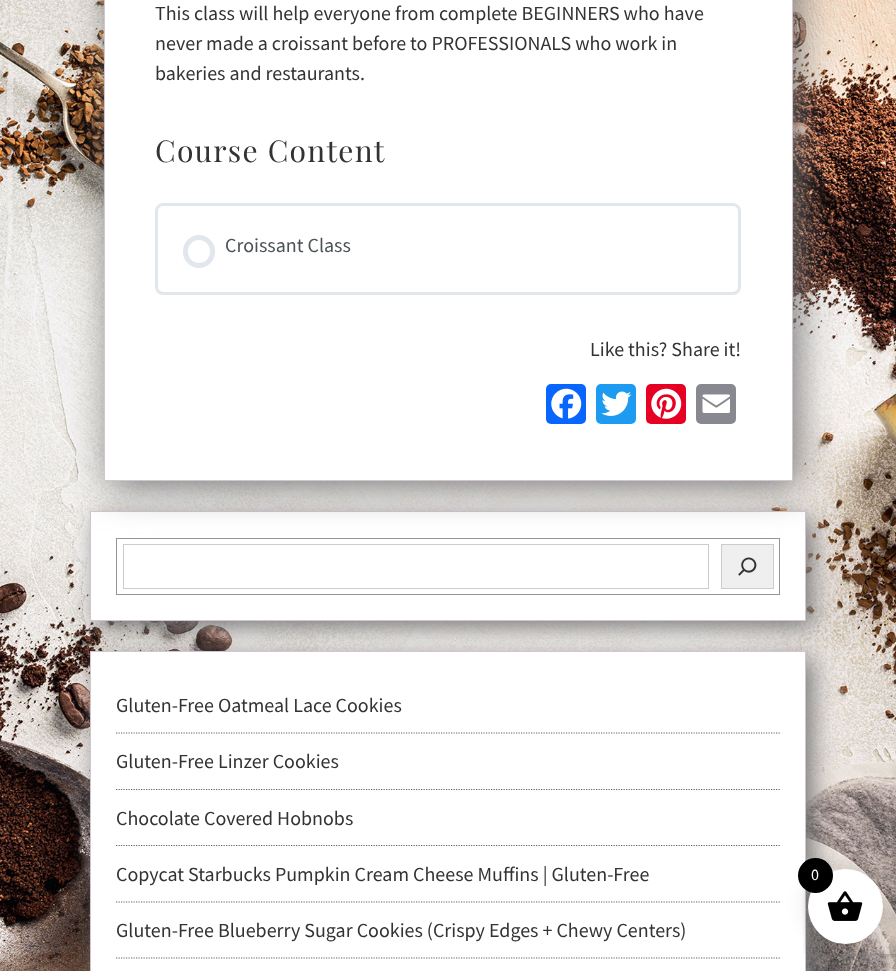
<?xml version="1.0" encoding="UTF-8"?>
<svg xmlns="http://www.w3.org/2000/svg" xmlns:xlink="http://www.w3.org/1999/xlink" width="896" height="971">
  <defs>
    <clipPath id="clip1"><path d="M 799 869 h 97 v 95 h -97 z m 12.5 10 h 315 c 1.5 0 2.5 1 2.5 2.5 v 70 c 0 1.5 -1 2.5 -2.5 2.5 h -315 c -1.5 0 -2.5 -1 -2.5 -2.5 v -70 c 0 -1.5 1 -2.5 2.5 -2.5 z" clip-rule="evenodd" /></clipPath>
  </defs>
  <rect width="100%" height="100%" fill="#ffffff" />
  <image x="0" y="0" width="896" height="971" xlink:href="image1.png" />
  <rect x="96" y="518" width="717" height="110" fill="#777777" filter="blur(12.5px)" />
  <rect x="90.5" y="511.5" width="715" height="109" fill="#ffffff" stroke="#d3c4d1" />
  <rect x="116.5" y="538.5" width="663" height="56" fill="none" stroke="#949494" />
  <rect x="110" y="-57" width="689" height="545" fill="#777777" filter="blur(19px)" />
  <rect x="104.5" y="-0.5" width="688" height="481" fill="#ffffff" stroke="#d3c4d1" />
  <rect x="156.5" y="204.5" width="583" height="89" rx="6.5" fill="none" stroke="#e2e7ed" stroke-width="3" />
  <rect x="185.5" y="237.5" width="27" height="28" rx="13.5" fill="none" stroke="#e2e7ed" stroke-width="5" />
  <rect x="546" y="384" width="40" height="40" rx="5" fill="#0866ff" />
  <image x="551" y="388" width="31" height="31" xlink:href="image2.png" />
  <rect x="596" y="384" width="40" height="40" rx="5" fill="#1d9bf0" />
  <image x="601" y="391" width="31" height="25" xlink:href="image3.png" />
  <rect x="646" y="384" width="40" height="40" rx="5" fill="#e60023" />
  <image x="651" y="388" width="31" height="31" xlink:href="image4.png" />
  <rect x="696" y="384" width="40" height="40" rx="5" fill="#888990" />
  <image x="702" y="394" width="28" height="19" xlink:href="image5.png" />
  <rect x="123.5" y="544.5" width="585" height="44" fill="none" stroke="#cccccc" />
  <rect x="721.5" y="544.5" width="52" height="44" fill="#efefef" stroke="#cccccc" />
  <image x="738" y="557" width="19" height="19" xlink:href="image6.png" />
  <rect x="96" y="658" width="717" height="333" fill="#777777" filter="blur(12.5px)" />
  <rect x="90.5" y="651.5" width="715" height="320" fill="#ffffff" stroke="#d3c4d1" />
  <path d="M 116 733 h 664" fill="none" stroke="#636363" stroke-width="1.2" stroke-dasharray="1.25 1.25" />
  <path d="M 116 789.5 h 664" fill="none" stroke="#636363" stroke-width="1.2" stroke-dasharray="1.25 1.25" />
  <path d="M 116 845.5 h 664" fill="none" stroke="#636363" stroke-width="1.2" stroke-dasharray="1.25 1.25" />
  <path d="M 116 902 h 664" fill="none" stroke="#636363" stroke-width="1.2" stroke-dasharray="1.25 1.25" />
  <path d="M 116 958 h 664" fill="none" stroke="#636363" stroke-width="1.2" stroke-dasharray="1.25 1.25" />
  <path d="M 206 247.5 l 4.5 4.5 l -4.5 4.5 l -4.5 -4.5 z" fill="#ffffff" />
  <g clip-path="url(#clip1)">
    <rect x="809" y="879" width="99" height="75" rx="2.5" fill="#808080" filter="blur(3px)" />
  </g>
  <rect x="805" y="866" width="80" height="80" rx="40" fill="#000000" fill-opacity="0.1" filter="blur(9.5px)" />
  <rect x="896" y="881" width="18" height="89" fill="#000000" fill-opacity="0.1" filter="blur(6px)" />
  <circle cx="845.5" cy="906.5" r="37.5" fill="#ffffff" />
  <image x="827" y="891" width="36" height="30" xlink:href="image7.png" />
  <circle cx="815.5" cy="875.5" r="17.5" fill="#000000" />
  <text x="155" y="20" style="font-family: Source Sans Pro; font-size: 20px; fill: #333333">This class will help everyone from complete BEGINNERS who have</text>
  <text x="155" y="50" style="font-family: Source Sans Pro; font-size: 20px; fill: #333333">never made a croissant before to PROFESSIONALS who work in</text>
  <text x="155" y="80" style="font-family: Source Sans Pro; font-size: 20px; fill: #333333">bakeries and restaurants.</text>
  <text x="155" y="162" style="font-family: Playfair Display; font-size: 30px; letter-spacing: 1.25px; fill: #333333">Course Content</text>
  <text x="225" y="252" style="font-family: Source Sans Pro; font-size: 20px; fill: #495255">Croissant Class</text>
  <text x="590" y="356" style="font-family: Source Sans Pro; font-size: 20px; fill: #333333">Like this? Share it!</text>
  <text x="116" y="712" style="font-family: Source Sans Pro; font-size: 20px; fill: #333333">Gluten-Free Oatmeal Lace Cookies</text>
  <text x="116" y="768" style="font-family: Source Sans Pro; font-size: 20px; fill: #333333">Gluten-Free Linzer Cookies</text>
  <text x="116" y="825" style="font-family: Source Sans Pro; font-size: 20px; fill: #333333">Chocolate Covered Hobnobs</text>
  <text x="116" y="881" style="font-family: Source Sans Pro; font-size: 20px; fill: #333333">Copycat Starbucks Pumpkin Cream Cheese Muffins | Gluten-Free</text>
  <text x="116" y="937" style="font-family: Source Sans Pro; font-size: 20px; fill: #333333">Gluten-Free Blueberry Sugar Cookies (Crispy Edges + Chewy Centers)</text>
  <text x="811" y="880" style="font-family: Source Sans Pro; font-size: 16px; fill: #ffffff">0</text>
</svg>
